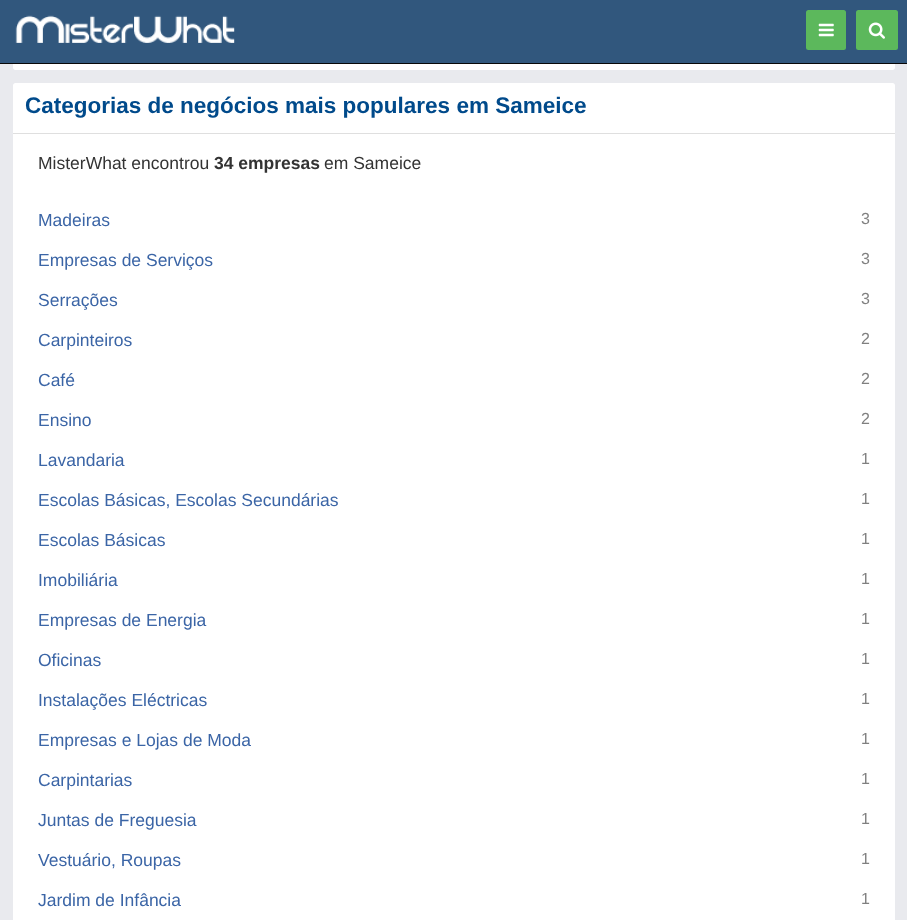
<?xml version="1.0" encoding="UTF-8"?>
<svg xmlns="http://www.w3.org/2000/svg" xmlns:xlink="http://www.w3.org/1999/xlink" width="907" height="920">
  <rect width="100%" height="100%" fill="#e9eaee" />
  <path d="M 13 21 h 882 v 46.5 c 0 1.5 -1 2.5 -2.5 2.5 h -877 c -1.5 0 -2.5 -1 -2.5 -2.5 z" fill="#ffffff" />
  <rect width="907" height="63" fill="#31577d" />
  <rect y="63" width="907" height="1" fill="#080808" />
  <image x="15" y="15" width="220" height="28" xlink:href="image1.png" />
  <rect x="806" y="10" width="40" height="40" rx="2.5" fill="#5cb85c" />
  <image x="818" y="23" width="16" height="14" xlink:href="image2.png" />
  <rect x="856" y="10" width="42" height="40" rx="2.5" fill="#5cb85c" />
  <image x="868" y="22" width="17" height="17" xlink:href="image3.png" />
  <path d="M 15.5 83 h 877 c 1.5 0 2.5 1 2.5 2.5 v 48.5 h -882 v -48.5 c 0 -1.5 1 -2.5 2.5 -2.5 z" fill="#ffffff" />
  <rect x="13" y="133" width="882" height="1" fill="#dfdfdf" />
  <rect x="13" y="134" width="882" height="786" fill="#ffffff" />
  <text x="25" y="113" style="font-family: Liberation Sans; font-size: 22.5px; font-weight: bold; fill: #004a8b">Categorias de negócios mais populares em Sameice</text>
  <text x="38" y="169" style="font-family: Liberation Sans; font-size: 17.5px; fill: #333333">MisterWhat encontrou</text>
  <text x="214" y="169" style="font-family: Liberation Sans; font-size: 17.5px; font-weight: bold; fill: #333333">34 empresas</text>
  <text x="324" y="169" style="font-family: Liberation Sans; font-size: 17.5px; fill: #333333">em Sameice</text>
  <text x="38" y="226" style="font-family: Liberation Sans; font-size: 17.5px; fill: #3b65a6">Madeiras</text>
  <text x="861" y="224" style="font-family: Liberation Sans; font-size: 16px; fill: #808080">3</text>
  <text x="38" y="266" style="font-family: Liberation Sans; font-size: 17.5px; fill: #3b65a6">Empresas de Serviços</text>
  <text x="861" y="264" style="font-family: Liberation Sans; font-size: 16px; fill: #808080">3</text>
  <text x="38" y="306" style="font-family: Liberation Sans; font-size: 17.5px; fill: #3b65a6">Serrações</text>
  <text x="861" y="304" style="font-family: Liberation Sans; font-size: 16px; fill: #808080">3</text>
  <text x="38" y="346" style="font-family: Liberation Sans; font-size: 17.5px; fill: #3b65a6">Carpinteiros</text>
  <text x="861" y="344" style="font-family: Liberation Sans; font-size: 16px; fill: #808080">2</text>
  <text x="38" y="386" style="font-family: Liberation Sans; font-size: 17.5px; fill: #3b65a6">Café</text>
  <text x="861" y="384" style="font-family: Liberation Sans; font-size: 16px; fill: #808080">2</text>
  <text x="38" y="426" style="font-family: Liberation Sans; font-size: 17.5px; fill: #3b65a6">Ensino</text>
  <text x="861" y="424" style="font-family: Liberation Sans; font-size: 16px; fill: #808080">2</text>
  <text x="38" y="466" style="font-family: Liberation Sans; font-size: 17.5px; fill: #3b65a6">Lavandaria</text>
  <text x="861" y="464" style="font-family: Liberation Sans; font-size: 16px; fill: #808080">1</text>
  <text x="38" y="506" style="font-family: Liberation Sans; font-size: 17.5px; fill: #3b65a6">Escolas Básicas, Escolas Secundárias</text>
  <text x="861" y="504" style="font-family: Liberation Sans; font-size: 16px; fill: #808080">1</text>
  <text x="38" y="546" style="font-family: Liberation Sans; font-size: 17.5px; fill: #3b65a6">Escolas Básicas</text>
  <text x="861" y="544" style="font-family: Liberation Sans; font-size: 16px; fill: #808080">1</text>
  <text x="38" y="586" style="font-family: Liberation Sans; font-size: 17.5px; fill: #3b65a6">Imobiliária</text>
  <text x="861" y="584" style="font-family: Liberation Sans; font-size: 16px; fill: #808080">1</text>
  <text x="38" y="626" style="font-family: Liberation Sans; font-size: 17.5px; fill: #3b65a6">Empresas de Energia</text>
  <text x="861" y="624" style="font-family: Liberation Sans; font-size: 16px; fill: #808080">1</text>
  <text x="38" y="666" style="font-family: Liberation Sans; font-size: 17.5px; fill: #3b65a6">Oficinas</text>
  <text x="861" y="664" style="font-family: Liberation Sans; font-size: 16px; fill: #808080">1</text>
  <text x="38" y="706" style="font-family: Liberation Sans; font-size: 17.5px; fill: #3b65a6">Instalações Eléctricas</text>
  <text x="861" y="704" style="font-family: Liberation Sans; font-size: 16px; fill: #808080">1</text>
  <text x="38" y="746" style="font-family: Liberation Sans; font-size: 17.5px; fill: #3b65a6">Empresas e Lojas de Moda</text>
  <text x="861" y="744" style="font-family: Liberation Sans; font-size: 16px; fill: #808080">1</text>
  <text x="38" y="786" style="font-family: Liberation Sans; font-size: 17.5px; fill: #3b65a6">Carpintarias</text>
  <text x="861" y="784" style="font-family: Liberation Sans; font-size: 16px; fill: #808080">1</text>
  <text x="38" y="826" style="font-family: Liberation Sans; font-size: 17.5px; fill: #3b65a6">Juntas de Freguesia</text>
  <text x="861" y="824" style="font-family: Liberation Sans; font-size: 16px; fill: #808080">1</text>
  <text x="38" y="866" style="font-family: Liberation Sans; font-size: 17.5px; fill: #3b65a6">Vestuário, Roupas</text>
  <text x="861" y="864" style="font-family: Liberation Sans; font-size: 16px; fill: #808080">1</text>
  <text x="38" y="906" style="font-family: Liberation Sans; font-size: 17.5px; fill: #3b65a6">Jardim de Infância</text>
  <text x="861" y="904" style="font-family: Liberation Sans; font-size: 16px; fill: #808080">1</text>
</svg>
